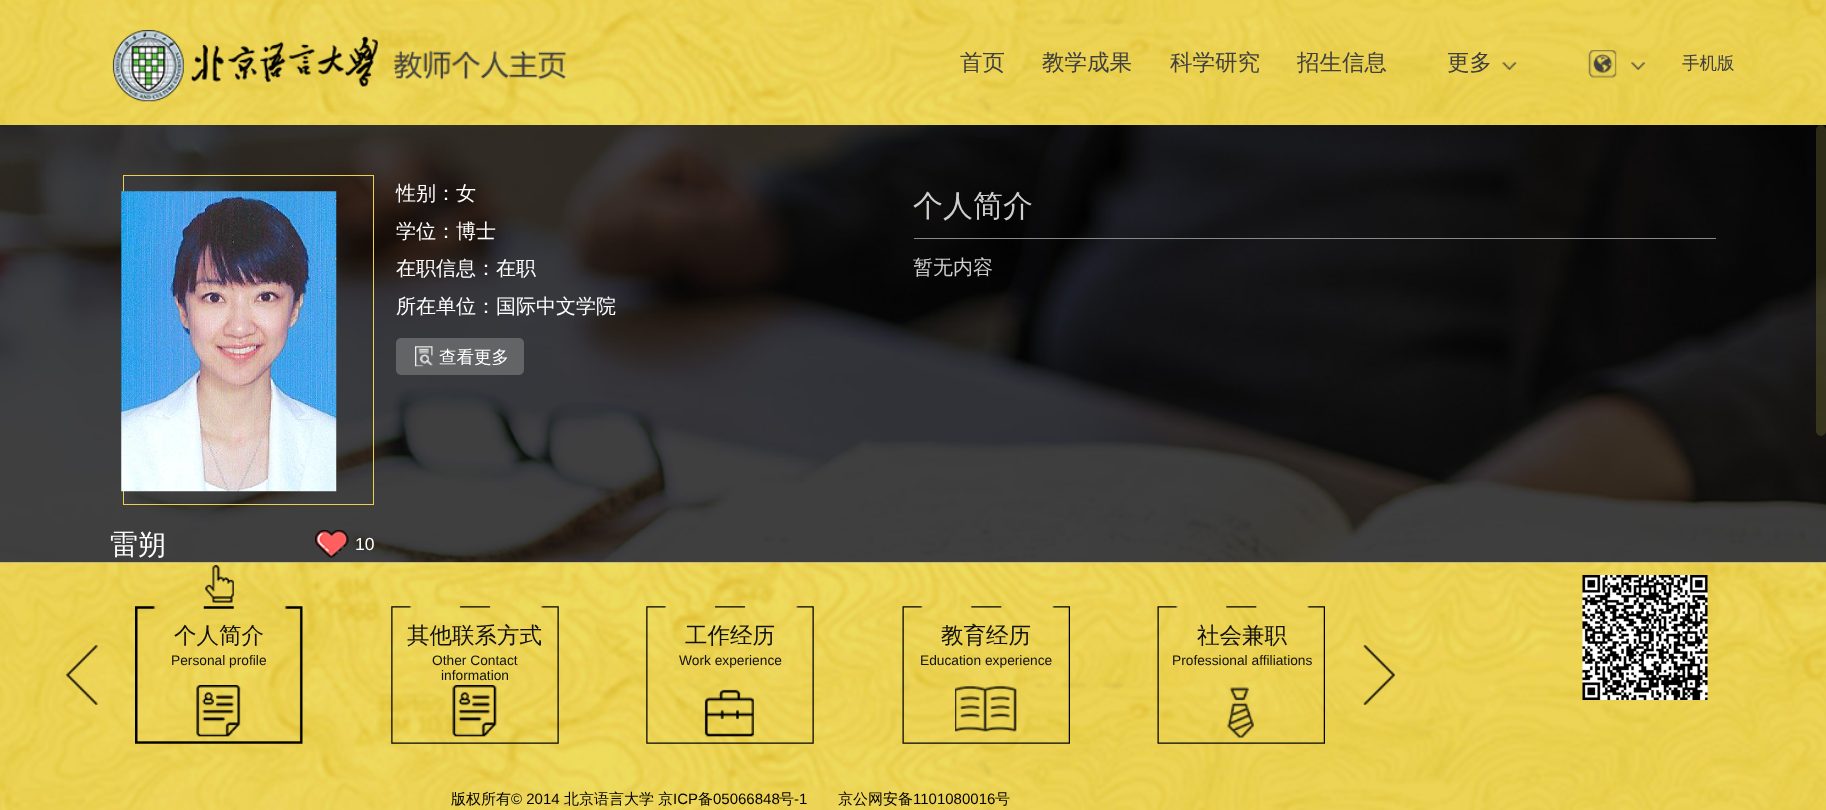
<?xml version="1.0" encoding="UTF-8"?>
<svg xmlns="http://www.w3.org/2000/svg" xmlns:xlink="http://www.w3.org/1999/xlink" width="1826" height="810">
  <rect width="100%" height="100%" fill="#ffffff" />
  <image x="0" y="0" width="1826" height="125" xlink:href="image1.png" />
  <image x="112" y="30" width="455" height="72" xlink:href="image2.png" />
  <image x="1502" y="62" width="15" height="8" xlink:href="image3.png" />
  <image x="1588" y="50" width="29" height="28" xlink:href="image4.png" />
  <image x="1631" y="62" width="14" height="8" xlink:href="image5.png" />
  <image x="0" y="125" width="1826" height="438" xlink:href="image6.png" />
  <rect x="396" y="338" width="128" height="37" rx="5" fill="#636465" />
  <image x="415" y="346" width="18" height="21" xlink:href="image7.png" />
  <rect x="123.5" y="175.5" width="250" height="329" fill="none" stroke="#ead150" />
  <image x="121" y="191" width="216" height="301" xlink:href="image8.png" />
  <image x="315" y="530" width="34" height="28" xlink:href="image9.png" />
  <rect x="914" y="238" width="802" height="1" fill="#89898b" />
  <image x="0" y="562" width="1826" height="248" xlink:href="image10.png" />
  <image x="66" y="645" width="32" height="60" xlink:href="image11.png" />
  <image x="205" y="565" width="29" height="38" xlink:href="image12.png" />
  <image x="135" y="606" width="168" height="138" xlink:href="image13.png" />
  <image x="196" y="685" width="45" height="52" xlink:href="image14.png" />
  <image x="391" y="606" width="168" height="138" xlink:href="image15.png" />
  <image x="452" y="685" width="45" height="52" xlink:href="image16.png" />
  <image x="646" y="606" width="168" height="138" xlink:href="image17.png" />
  <image x="704" y="689" width="50" height="48" xlink:href="image18.png" />
  <image x="902" y="606" width="168" height="138" xlink:href="image19.png" />
  <image x="955" y="686" width="62" height="46" xlink:href="image20.png" />
  <image x="1157" y="606" width="168" height="138" xlink:href="image21.png" />
  <image x="1227" y="687" width="27" height="51" xlink:href="image22.png" />
  <image x="1363" y="645" width="32" height="60" xlink:href="image23.png" />
  <image x="1582" y="575" width="126" height="125" xlink:href="image24.png" />
  <rect x="1816" y="125" width="10" height="311" rx="5" fill="#807737" fill-opacity="0.33" />
  <text x="960" y="70" style="font-family: WenQuanYi Zen Hei; font-size: 22.5px; font-weight: 500; fill: #404040">首页</text>
  <text x="1042" y="70" style="font-family: WenQuanYi Zen Hei; font-size: 22.5px; font-weight: 500; fill: #404040">教学成果</text>
  <text x="1170" y="70" style="font-family: WenQuanYi Zen Hei; font-size: 22.5px; font-weight: 500; fill: #404040">科学研究</text>
  <text x="1297" y="70" style="font-family: WenQuanYi Zen Hei; font-size: 22.5px; font-weight: 500; fill: #404040">招生信息</text>
  <text x="1447" y="70" style="font-family: WenQuanYi Zen Hei; font-size: 22.5px; font-weight: 500; fill: #404040">更多</text>
  <text x="1682" y="69" style="font-family: WenQuanYi Zen Hei; font-size: 17.5px; font-weight: 500; fill: #404040">手机版</text>
  <text x="396" y="200" style="font-family: WenQuanYi Zen Hei; font-size: 20px; font-weight: 500; fill: #ffffff">性别：女</text>
  <text x="396" y="238" style="font-family: WenQuanYi Zen Hei; font-size: 20px; font-weight: 500; fill: #ffffff">学位：博士</text>
  <text x="396" y="275" style="font-family: WenQuanYi Zen Hei; font-size: 20px; font-weight: 500; fill: #ffffff">在职信息：在职</text>
  <text x="396" y="313" style="font-family: WenQuanYi Zen Hei; font-size: 20px; font-weight: 500; fill: #ffffff">所在单位：国际中文学院</text>
  <text x="439" y="363" style="font-family: WenQuanYi Zen Hei; font-size: 17.5px; font-weight: 500; fill: #ffffff">查看更多</text>
  <text x="110" y="554" style="font-family: WenQuanYi Zen Hei; font-size: 28px; font-weight: 500; fill: #ffffff">雷朔</text>
  <text x="355" y="550" style="font-family: Liberation Sans; font-size: 17.5px; fill: #ffffff">10</text>
  <text x="913" y="216" style="font-family: WenQuanYi Zen Hei; font-size: 30px; font-weight: 500; fill: #cecece">个人简介</text>
  <text x="913" y="274" style="font-family: WenQuanYi Zen Hei; font-size: 20px; font-weight: 500; fill: #cecece">暂无内容</text>
  <text x="174" y="643" style="font-family: WenQuanYi Zen Hei; font-size: 22.5px; font-weight: 500; fill: #111111">个人简介</text>
  <text x="171" y="665" style="font-family: Liberation Sans; font-size: 13.75px; fill: #111111">Personal profile</text>
  <text x="407" y="643" style="font-family: WenQuanYi Zen Hei; font-size: 22.5px; font-weight: 500; fill: #111111">其他联系方式</text>
  <text x="432" y="665" style="font-family: Liberation Sans; font-size: 13.75px; fill: #111111">Other Contact</text>
  <text x="441" y="680" style="font-family: Liberation Sans; font-size: 13.75px; fill: #111111">information</text>
  <text x="685" y="643" style="font-family: WenQuanYi Zen Hei; font-size: 22.5px; font-weight: 500; fill: #111111">工作经历</text>
  <text x="679" y="665" style="font-family: Liberation Sans; font-size: 13.75px; fill: #111111">Work experience</text>
  <text x="941" y="643" style="font-family: WenQuanYi Zen Hei; font-size: 22.5px; font-weight: 500; fill: #111111">教育经历</text>
  <text x="920" y="665" style="font-family: Liberation Sans; font-size: 13.75px; fill: #111111">Education experience</text>
  <text x="1197" y="643" style="font-family: WenQuanYi Zen Hei; font-size: 22.5px; font-weight: 500; fill: #111111">社会兼职</text>
  <text x="1172" y="665" style="font-family: Liberation Sans; font-size: 13.75px; fill: #111111">Professional affiliations</text>
  <text x="451" y="804" style="font-family: WenQuanYi Zen Hei; font-size: 15px; font-weight: 500; fill: #000000">版权所有</text>
  <text x="511" y="804" style="font-family: Liberation Sans; font-size: 15px; fill: #000000">© 2014</text>
  <text x="564" y="804" style="font-family: WenQuanYi Zen Hei; font-size: 15px; font-weight: 500; fill: #000000">北京语言大学</text>
  <text x="658" y="804" style="font-family: WenQuanYi Zen Hei; font-size: 15px; font-weight: 500; fill: #000000">京</text>
  <text x="673" y="804" style="font-family: Liberation Sans; font-size: 15px; fill: #000000">ICP</text>
  <text x="698" y="804" style="font-family: WenQuanYi Zen Hei; font-size: 15px; font-weight: 500; fill: #000000">备</text>
  <text x="713" y="804" style="font-family: Liberation Sans; font-size: 15px; fill: #000000">05066848</text>
  <text x="779" y="804" style="font-family: WenQuanYi Zen Hei; font-size: 15px; font-weight: 500; fill: #000000">号</text>
  <text x="794" y="804" style="font-family: Liberation Sans; font-size: 15px; fill: #000000">-1</text>
  <text x="838" y="804" style="font-family: WenQuanYi Zen Hei; font-size: 15px; font-weight: 500; fill: #000000">京公网安备</text>
  <text x="913" y="804" style="font-family: Liberation Sans; font-size: 15px; fill: #000000">1101080016</text>
  <text x="995" y="804" style="font-family: WenQuanYi Zen Hei; font-size: 15px; font-weight: 500; fill: #000000">号</text>
</svg>
